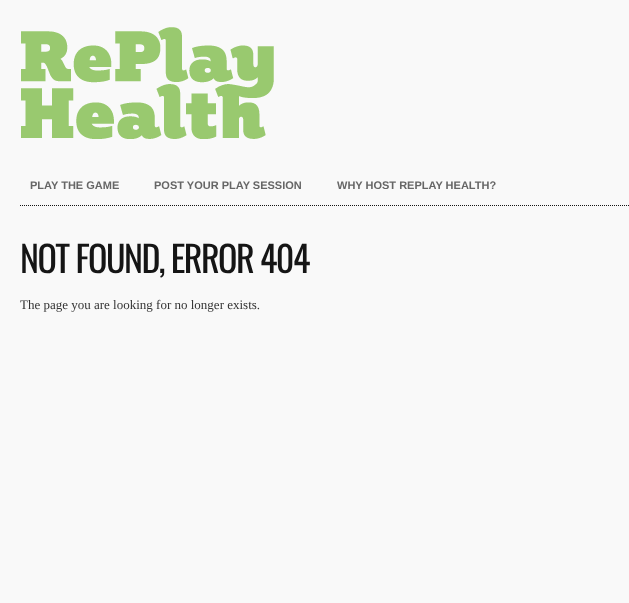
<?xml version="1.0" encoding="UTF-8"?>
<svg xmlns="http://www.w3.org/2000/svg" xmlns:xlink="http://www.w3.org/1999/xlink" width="629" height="603">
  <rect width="100%" height="100%" fill="#f9f9f9" />
  <image x="21" y="27" width="253" height="112" xlink:href="image1.png" />
  <path d="M 20 205.5 h 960" fill="none" stroke="#151515" stroke-dasharray="1 1" />
  <text x="30" y="189" style="font-family: Liberation Sans; font-size: 11px; font-weight: bold; fill: #666666">PLAY THE GAME</text>
  <text x="154" y="189" style="font-family: Liberation Sans; font-size: 11px; font-weight: bold; fill: #666666">POST YOUR PLAY SESSION</text>
  <text x="337" y="189" style="font-family: Liberation Sans; font-size: 11px; font-weight: bold; fill: #666666">WHY HOST REPLAY HEALTH?</text>
  <text x="20" y="273" style="font-family: Oswald; font-size: 36px; letter-spacing: -1.5px; fill: #151515">NOT FOUND, ERROR 404</text>
  <text x="20" y="309" style="font-family: Liberation Serif; font-size: 13px; fill: #333333">The page you are looking for no longer exists.</text>
</svg>
